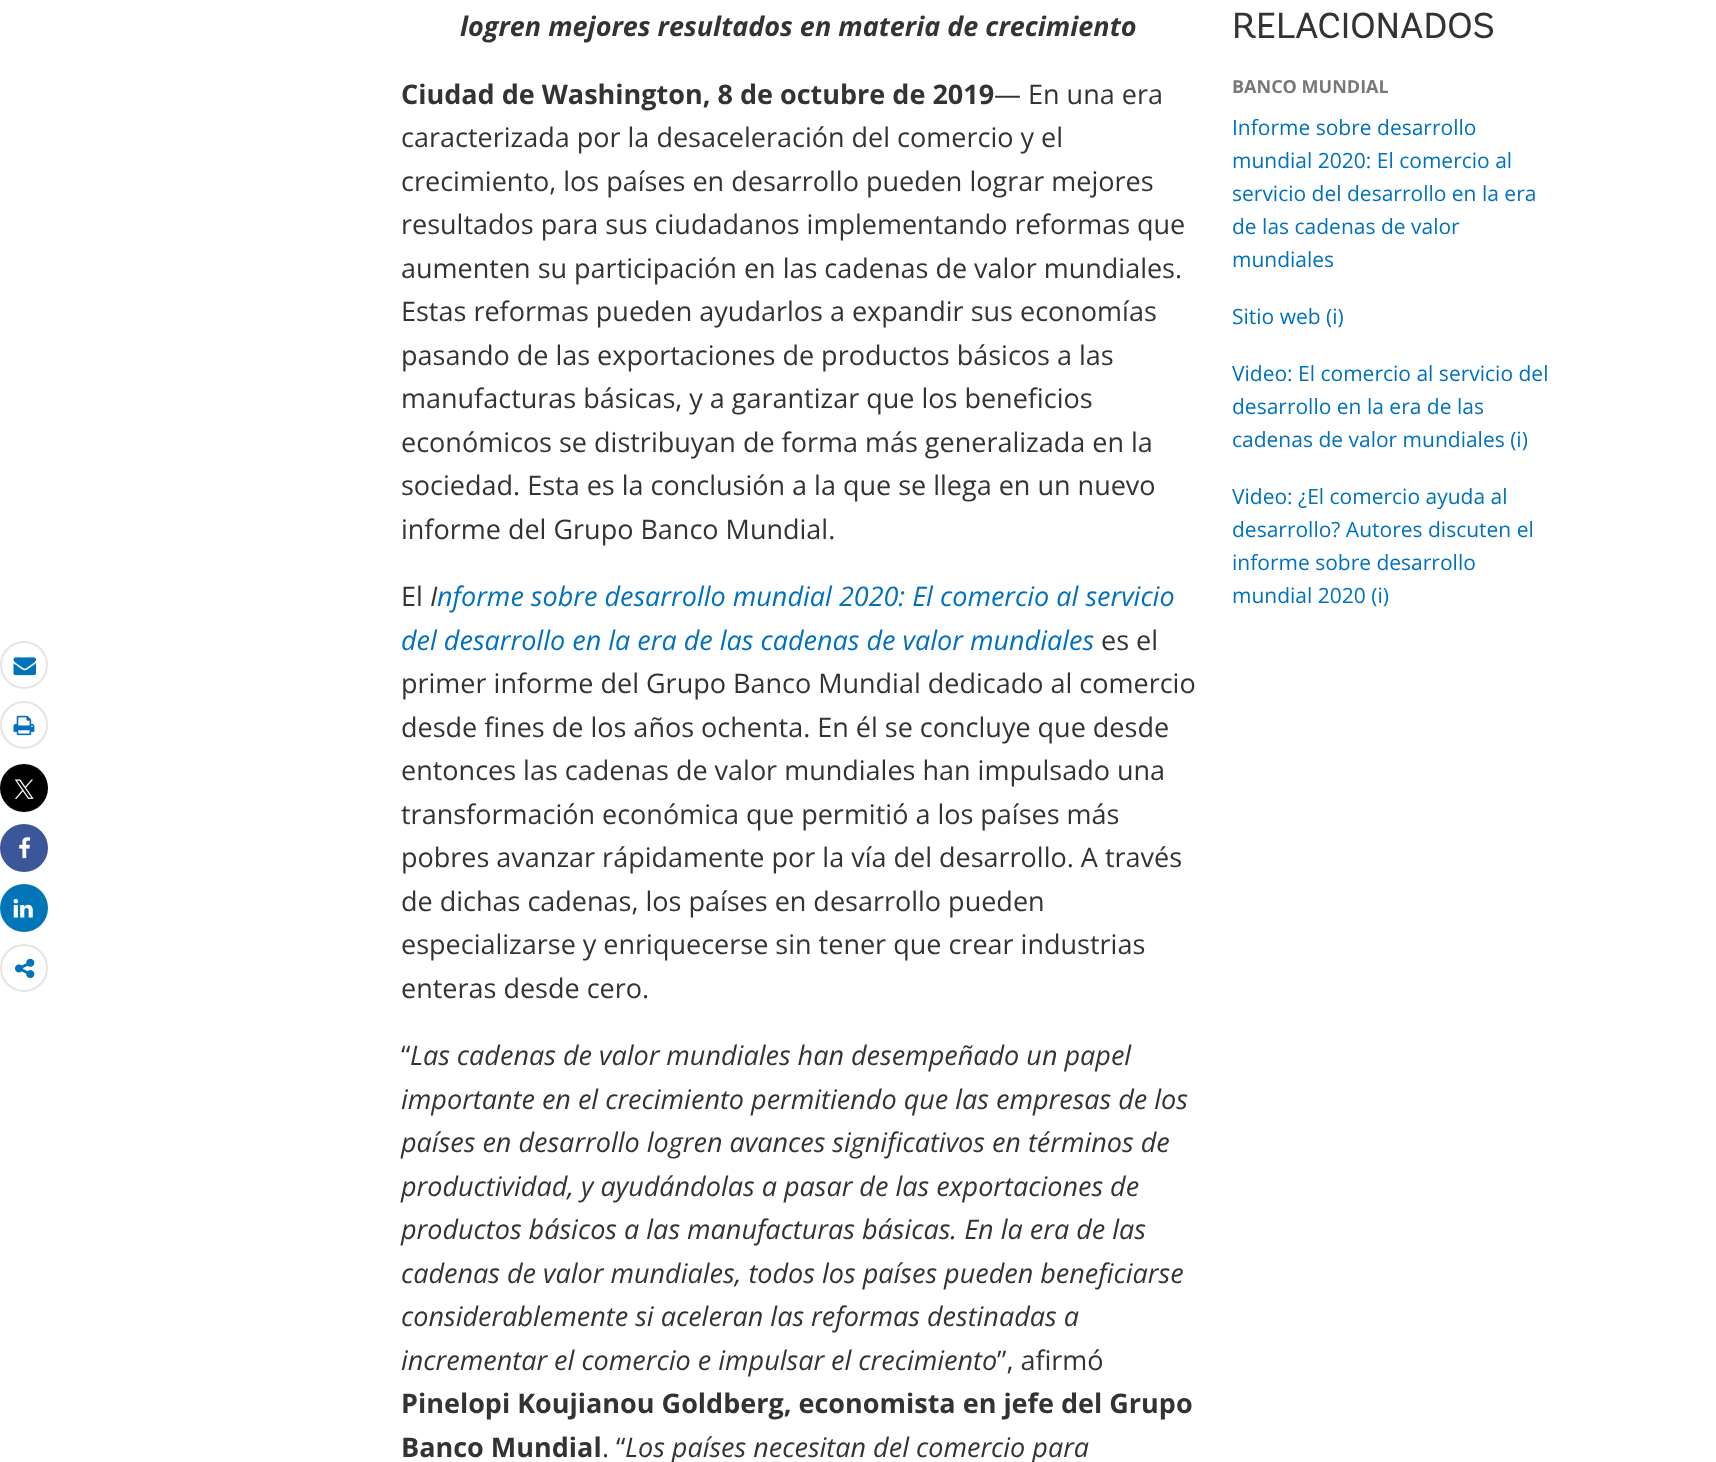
<?xml version="1.0" encoding="UTF-8"?>
<svg xmlns="http://www.w3.org/2000/svg" xmlns:xlink="http://www.w3.org/1999/xlink" width="1716" height="1462">
  <rect width="100%" height="100%" fill="#ffffff" />
  <circle cx="24" cy="665" r="23" fill="none" stroke="#e5e5e5" stroke-width="2" />
  <image x="13" y="657" width="23" height="19" xlink:href="image1.png" />
  <circle cx="24" cy="725" r="23" fill="none" stroke="#e5e5e5" stroke-width="2" />
  <image x="13" y="715" width="22" height="21" xlink:href="image2.png" />
  <circle cx="24" cy="788" r="24" fill="#000000" />
  <image x="14" y="779" width="20" height="20" xlink:href="image3.png" />
  <circle cx="24" cy="848" r="24" fill="#3c569a" />
  <image x="19" y="837" width="12" height="22" xlink:href="image4.png" />
  <circle cx="24" cy="908" r="24" fill="#0075b7" />
  <image x="13" y="899" width="20" height="19" xlink:href="image5.png" />
  <circle cx="24" cy="968" r="23" fill="none" stroke="#e5e5e5" stroke-width="2" />
  <image x="15" y="958" width="20" height="21" xlink:href="image6.png" />
  <text x="460" y="36" style="font-family: Open Sans; font-size: 27px; font-weight: bold; font-style: italic; fill: #333333">logren mejores resultados en materia de crecimiento</text>
  <text x="401" y="104" style="font-family: Open Sans; font-size: 27px; font-weight: bold; fill: #333333">Ciudad de Washington, 8 de octubre de 2019</text>
  <text x="994" y="104" style="font-family: Open Sans; font-size: 27px; fill: #333333">— En una era</text>
  <text x="401" y="147" style="font-family: Open Sans; font-size: 27px; fill: #333333">caracterizada por la desaceleración del comercio y el</text>
  <text x="401" y="191" style="font-family: Open Sans; font-size: 27px; fill: #333333">crecimiento, los países en desarrollo pueden lograr mejores</text>
  <text x="401" y="234" style="font-family: Open Sans; font-size: 27px; fill: #333333">resultados para sus ciudadanos implementando reformas que</text>
  <text x="401" y="278" style="font-family: Open Sans; font-size: 27px; fill: #333333">aumenten su participación en las cadenas de valor mundiales.</text>
  <text x="401" y="321" style="font-family: Open Sans; font-size: 27px; fill: #333333">Estas reformas pueden ayudarlos a expandir sus economías</text>
  <text x="401" y="365" style="font-family: Open Sans; font-size: 27px; fill: #333333">pasando de las exportaciones de productos básicos a las</text>
  <text x="401" y="408" style="font-family: Open Sans; font-size: 27px; fill: #333333">manufacturas básicas, y a garantizar que los beneficios</text>
  <text x="401" y="452" style="font-family: Open Sans; font-size: 27px; fill: #333333">económicos se distribuyan de forma más generalizada en la</text>
  <text x="401" y="495" style="font-family: Open Sans; font-size: 27px; fill: #333333">sociedad. Esta es la conclusión a la que se llega en un nuevo</text>
  <text x="401" y="539" style="font-family: Open Sans; font-size: 27px; fill: #333333">informe del Grupo Banco Mundial.</text>
  <text x="401" y="606" style="font-family: Open Sans; font-size: 27px; fill: #333333">El</text>
  <text x="430" y="606" style="font-family: Open Sans; font-size: 27px; font-style: italic; fill: #333333">I</text>
  <text x="437" y="606" style="font-family: Open Sans; font-size: 27px; font-style: italic; fill: #0071bc">nforme sobre desarrollo mundial 2020: El comercio al servicio</text>
  <text x="401" y="650" style="font-family: Open Sans; font-size: 27px; font-style: italic; fill: #0071bc">del desarrollo en la era de las cadenas de valor mundiales</text>
  <text x="1101" y="650" style="font-family: Open Sans; font-size: 27px; fill: #333333">es el</text>
  <text x="401" y="693" style="font-family: Open Sans; font-size: 27px; fill: #333333">primer informe del Grupo Banco Mundial dedicado al comercio</text>
  <text x="401" y="737" style="font-family: Open Sans; font-size: 27px; fill: #333333">desde fines de los años ochenta. En él se concluye que desde</text>
  <text x="401" y="780" style="font-family: Open Sans; font-size: 27px; fill: #333333">entonces las cadenas de valor mundiales han impulsado una</text>
  <text x="401" y="824" style="font-family: Open Sans; font-size: 27px; fill: #333333">transformación económica que permitió a los países más</text>
  <text x="401" y="867" style="font-family: Open Sans; font-size: 27px; fill: #333333">pobres avanzar rápidamente por la vía del desarrollo. A través</text>
  <text x="401" y="911" style="font-family: Open Sans; font-size: 27px; fill: #333333">de dichas cadenas, los países en desarrollo pueden</text>
  <text x="401" y="954" style="font-family: Open Sans; font-size: 27px; fill: #333333">especializarse y enriquecerse sin tener que crear industrias</text>
  <text x="401" y="998" style="font-family: Open Sans; font-size: 27px; fill: #333333">enteras desde cero.</text>
  <text x="401" y="1065" style="font-family: Open Sans; font-size: 27px; fill: #333333">“</text>
  <text x="410" y="1065" style="font-family: Open Sans; font-size: 27px; font-style: italic; fill: #333333">Las cadenas de valor mundiales han desempeñado un papel</text>
  <text x="401" y="1109" style="font-family: Open Sans; font-size: 27px; font-style: italic; fill: #333333">importante en el crecimiento permitiendo que las empresas de los</text>
  <text x="401" y="1152" style="font-family: Open Sans; font-size: 27px; font-style: italic; fill: #333333">países en desarrollo logren avances significativos en términos de</text>
  <text x="401" y="1196" style="font-family: Open Sans; font-size: 27px; font-style: italic; fill: #333333">productividad, y ayudándolas a pasar de las exportaciones de</text>
  <text x="401" y="1239" style="font-family: Open Sans; font-size: 27px; font-style: italic; fill: #333333">productos básicos a las manufacturas básicas. En la era de las</text>
  <text x="401" y="1283" style="font-family: Open Sans; font-size: 27px; font-style: italic; fill: #333333">cadenas de valor mundiales, todos los países pueden beneficiarse</text>
  <text x="401" y="1326" style="font-family: Open Sans; font-size: 27px; font-style: italic; fill: #333333">considerablemente si aceleran las reformas destinadas a</text>
  <text x="401" y="1370" style="font-family: Open Sans; font-size: 27px; font-style: italic; fill: #333333">incrementar el comercio e impulsar el crecimiento</text>
  <text x="997" y="1370" style="font-family: Open Sans; font-size: 27px; fill: #333333">”, afirmó</text>
  <text x="401" y="1413" style="font-family: Open Sans; font-size: 27px; font-weight: bold; fill: #333333">Pinelopi Koujianou Goldberg, economista en jefe del Grupo</text>
  <text x="401" y="1457" style="font-family: Open Sans; font-size: 27px; font-weight: bold; fill: #333333">Banco Mundial</text>
  <text x="602" y="1457" style="font-family: Open Sans; font-size: 27px; fill: #333333">. “</text>
  <text x="625" y="1457" style="font-family: Open Sans; font-size: 27px; font-style: italic; fill: #333333">Los países necesitan del comercio para</text>
  <text x="1232" y="38" style="font-family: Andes; font-size: 36px; fill: #333333">RELACIONADOS</text>
  <text x="1232" y="93" style="font-family: Open Sans; font-size: 18px; font-weight: bold; fill: #787878">BANCO MUNDIAL</text>
  <text x="1232" y="135" style="font-family: Open Sans; font-size: 21px; fill: #0071bc">Informe sobre desarrollo</text>
  <text x="1232" y="168" style="font-family: Open Sans; font-size: 21px; fill: #0071bc">mundial 2020: El comercio al</text>
  <text x="1232" y="201" style="font-family: Open Sans; font-size: 21px; fill: #0071bc">servicio del desarrollo en la era</text>
  <text x="1232" y="234" style="font-family: Open Sans; font-size: 21px; fill: #0071bc">de las cadenas de valor</text>
  <text x="1232" y="267" style="font-family: Open Sans; font-size: 21px; fill: #0071bc">mundiales</text>
  <text x="1232" y="324" style="font-family: Open Sans; font-size: 21px; fill: #0071bc">Sitio web (i)</text>
  <text x="1232" y="381" style="font-family: Open Sans; font-size: 21px; fill: #0071bc">Video: El comercio al servicio del</text>
  <text x="1232" y="414" style="font-family: Open Sans; font-size: 21px; fill: #0071bc">desarrollo en la era de las</text>
  <text x="1232" y="447" style="font-family: Open Sans; font-size: 21px; fill: #0071bc">cadenas de valor mundiales (i)</text>
  <text x="1232" y="504" style="font-family: Open Sans; font-size: 21px; fill: #0071bc">Video: ¿El comercio ayuda al</text>
  <text x="1232" y="537" style="font-family: Open Sans; font-size: 21px; fill: #0071bc">desarrollo? Autores discuten el</text>
  <text x="1232" y="570" style="font-family: Open Sans; font-size: 21px; fill: #0071bc">informe sobre desarrollo</text>
  <text x="1232" y="603" style="font-family: Open Sans; font-size: 21px; fill: #0071bc">mundial 2020 (i)</text>
</svg>
